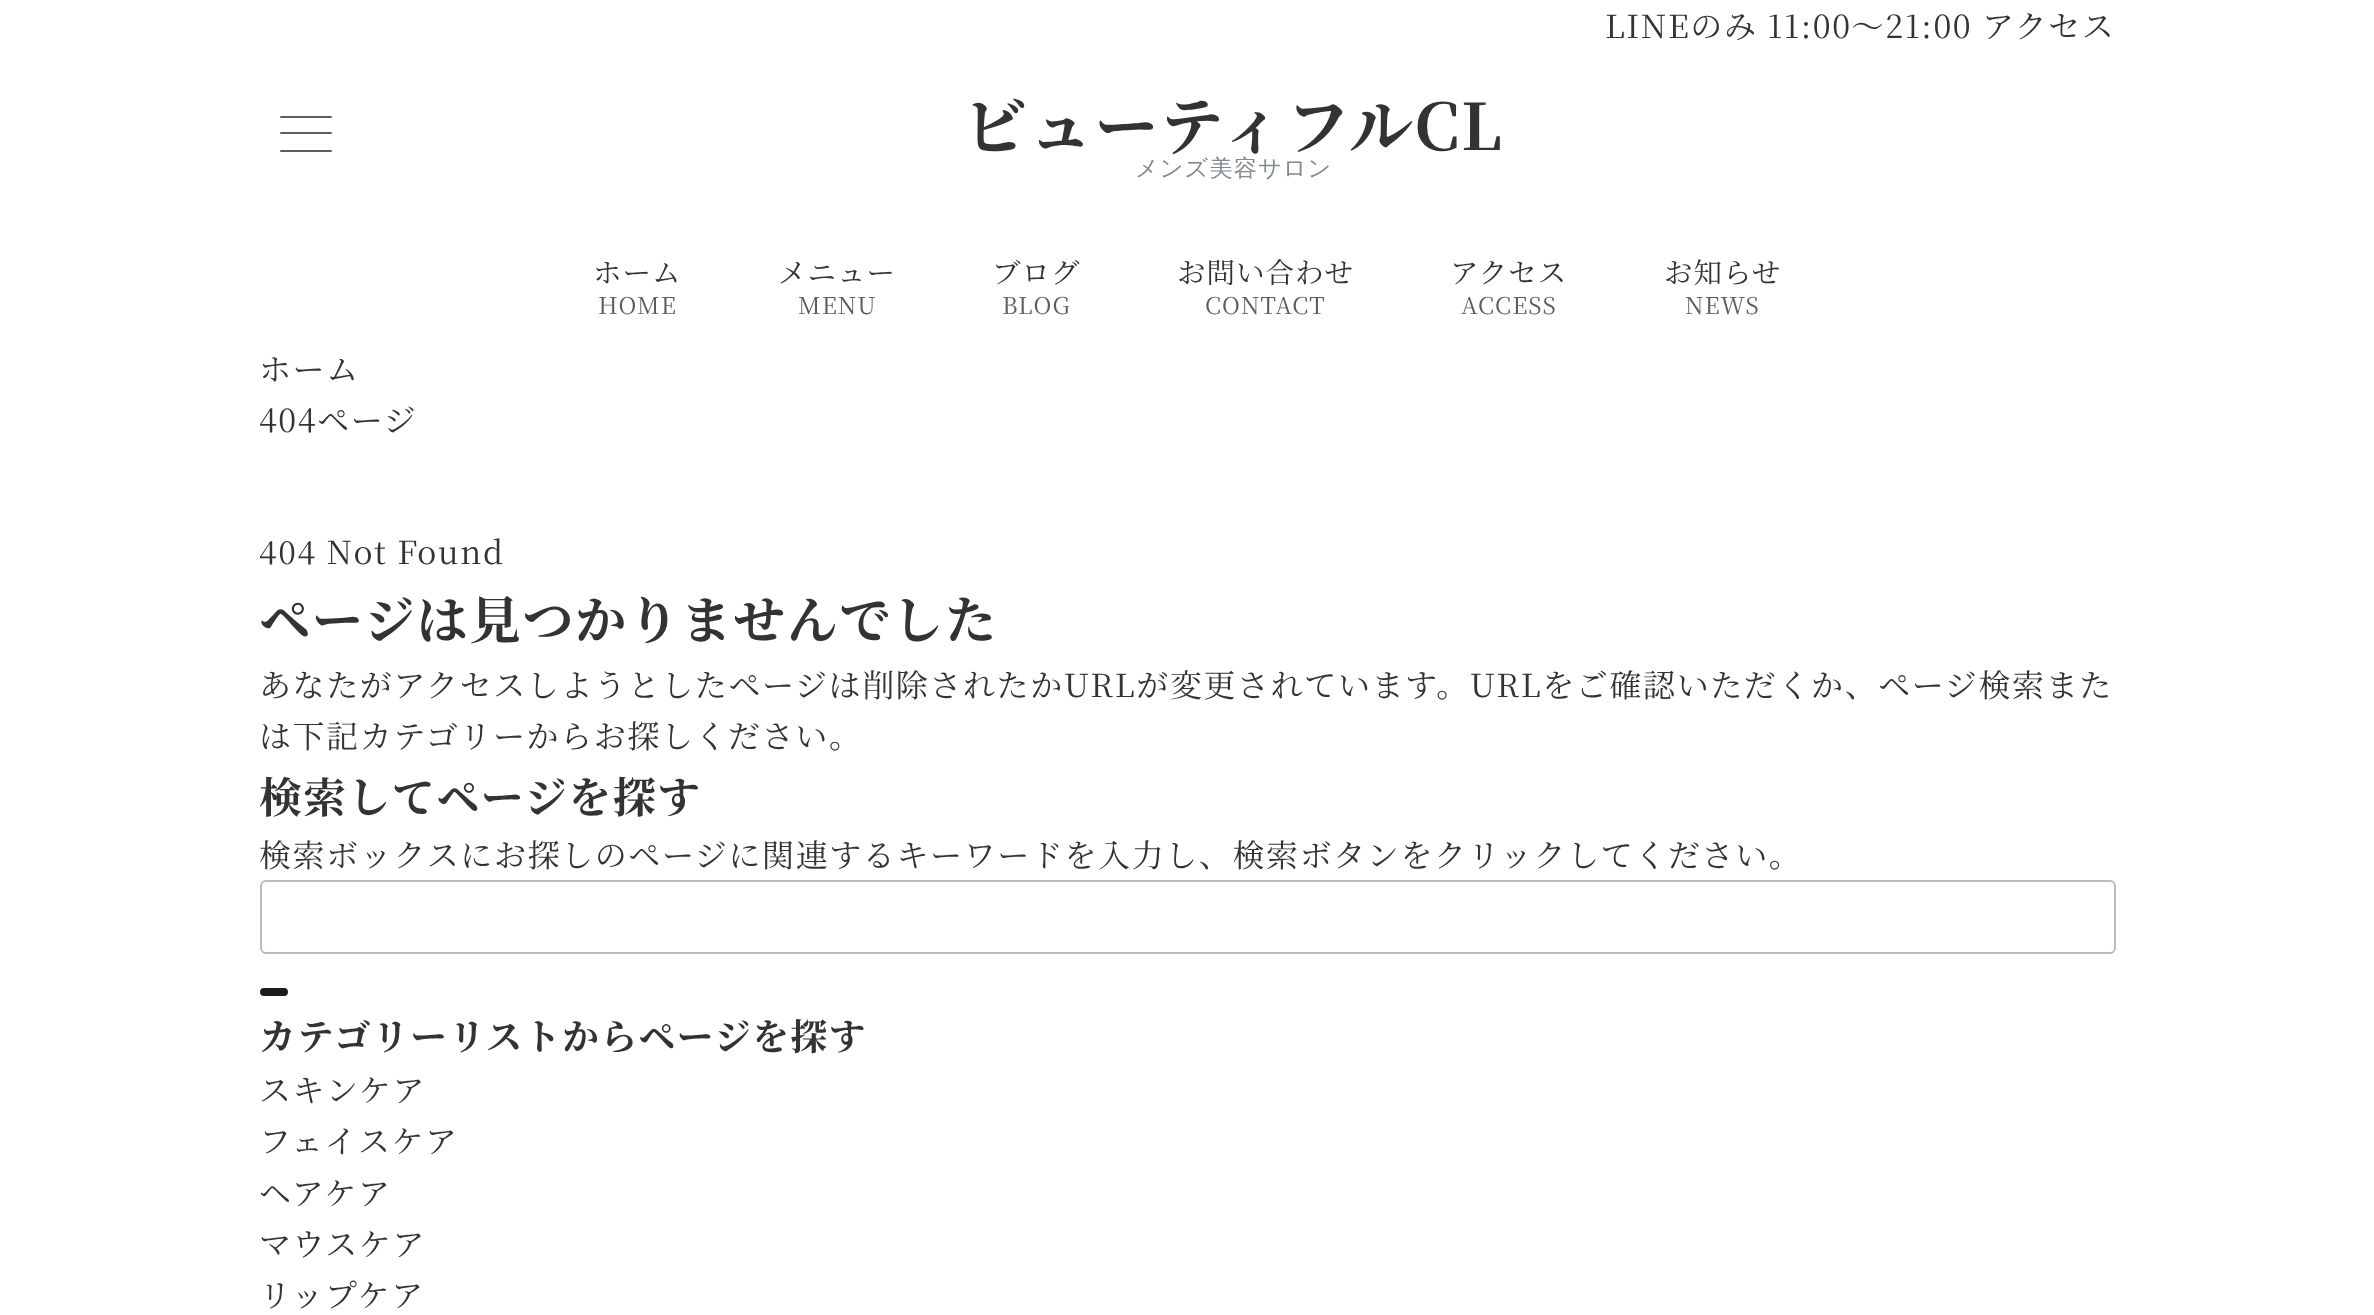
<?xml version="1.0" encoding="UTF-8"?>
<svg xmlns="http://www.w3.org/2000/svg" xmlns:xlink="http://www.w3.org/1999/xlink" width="2374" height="1315">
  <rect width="100%" height="100%" fill="#ffffff" />
  <rect x="280" y="116" width="52" height="2" rx="1" fill="#5e5e5e" />
  <rect x="280" y="132" width="52" height="2" rx="1" fill="#5e5e5e" />
  <rect x="280" y="150" width="52" height="2" rx="1" fill="#5e5e5e" />
  <rect x="261" y="881" width="1854" height="72" rx="5" fill="none" stroke="#b8bcc0" stroke-width="2" />
  <rect x="261" y="989" width="26" height="6" rx="3" fill="#1c1c1c" stroke="#1c1c1c" stroke-width="2" />
  <text x="1605" y="38" style="font-family: Noto Serif JP; font-size: 32px; letter-spacing: 1.6px; fill: #333333">LINEのみ 11:00〜21:00 アクセス</text>
  <text x="963" y="150" style="font-family: Noto Serif JP; font-size: 64px; font-weight: bold; letter-spacing: 1.6px; fill: #333333">ビューティフルCL</text>
  <text x="1135" y="176" style="font-family: WenQuanYi Zen Hei; font-size: 23.25px; font-weight: 500; letter-spacing: 1px; fill: #828990">メンズ美容サロン</text>
  <text x="593" y="283" style="font-family: Noto Serif JP; font-size: 28.5px; letter-spacing: 1px; fill: #333333">ホーム</text>
  <text x="598" y="314" style="font-family: Noto Serif JP; font-size: 23.25px; letter-spacing: 1px; fill: #5c5c5c">HOME</text>
  <text x="778" y="283" style="font-family: Noto Serif JP; font-size: 28.5px; letter-spacing: 1px; fill: #333333">メニュー</text>
  <text x="798" y="314" style="font-family: Noto Serif JP; font-size: 23.25px; letter-spacing: 1px; fill: #5c5c5c">MENU</text>
  <text x="992" y="283" style="font-family: Noto Serif JP; font-size: 28.5px; letter-spacing: 1px; fill: #333333">ブログ</text>
  <text x="1002" y="314" style="font-family: Noto Serif JP; font-size: 23.25px; letter-spacing: 1px; fill: #5c5c5c">BLOG</text>
  <text x="1177" y="283" style="font-family: Noto Serif JP; font-size: 28.5px; letter-spacing: 1px; fill: #333333">お問い合わせ</text>
  <text x="1205" y="314" style="font-family: Noto Serif JP; font-size: 23.25px; letter-spacing: 1px; fill: #5c5c5c">CONTACT</text>
  <text x="1450" y="283" style="font-family: Noto Serif JP; font-size: 28.5px; letter-spacing: 1px; fill: #333333">アクセス</text>
  <text x="1461" y="314" style="font-family: Noto Serif JP; font-size: 23.25px; letter-spacing: 1px; fill: #5c5c5c">ACCESS</text>
  <text x="1664" y="283" style="font-family: Noto Serif JP; font-size: 28.5px; letter-spacing: 1px; fill: #333333">お知らせ</text>
  <text x="1685" y="314" style="font-family: Noto Serif JP; font-size: 23.25px; letter-spacing: 1px; fill: #5c5c5c">NEWS</text>
  <text x="259" y="381" style="font-family: Noto Serif JP; font-size: 32px; letter-spacing: 1.6px; fill: #333333">ホーム</text>
  <text x="259" y="432" style="font-family: Noto Serif JP; font-size: 32px; letter-spacing: 1.6px; fill: #333333">404ページ</text>
  <text x="259" y="564" style="font-family: Noto Serif JP; font-size: 32px; letter-spacing: 1.6px; fill: #333333">404 Not Found</text>
  <text x="259" y="639" style="font-family: Noto Serif JP; font-size: 51.25px; font-weight: bold; letter-spacing: 1.6px; fill: #333333">ページは見つかりませんでした</text>
  <text x="259" y="697" style="font-family: Noto Serif JP; font-size: 32px; letter-spacing: 1.6px; fill: #333333">あなたがアクセスしようとしたページは削除されたかURLが変更されています。URLをご確認いただくか、ページ検索また</text>
  <text x="259" y="748" style="font-family: Noto Serif JP; font-size: 32px; letter-spacing: 1.6px; fill: #333333">は下記カテゴリーからお探しください。</text>
  <text x="259" y="813" style="font-family: Noto Serif JP; font-size: 42.75px; font-weight: bold; letter-spacing: 1.6px; fill: #333333">検索してページを探す</text>
  <text x="259" y="867" style="font-family: Noto Serif JP; font-size: 32px; letter-spacing: 1.6px; fill: #333333">検索ボックスにお探しのページに関連するキーワードを入力し、検索ボタンをクリックしてください。</text>
  <text x="259" y="1050" style="font-family: Noto Serif JP; font-size: 36.6px; font-weight: bold; letter-spacing: 1.6px; fill: #333333">カテゴリーリストからページを探す</text>
  <text x="259" y="1102" style="font-family: Noto Serif JP; font-size: 32px; letter-spacing: 1.6px; fill: #333333">スキンケア</text>
  <text x="259" y="1153" style="font-family: Noto Serif JP; font-size: 32px; letter-spacing: 1.6px; fill: #333333">フェイスケア</text>
  <text x="259" y="1205" style="font-family: Noto Serif JP; font-size: 32px; letter-spacing: 1.6px; fill: #333333">ヘアケア</text>
  <text x="259" y="1256" style="font-family: Noto Serif JP; font-size: 32px; letter-spacing: 1.6px; fill: #333333">マウスケア</text>
  <text x="259" y="1307" style="font-family: Noto Serif JP; font-size: 32px; letter-spacing: 1.6px; fill: #333333">リップケア</text>
</svg>
